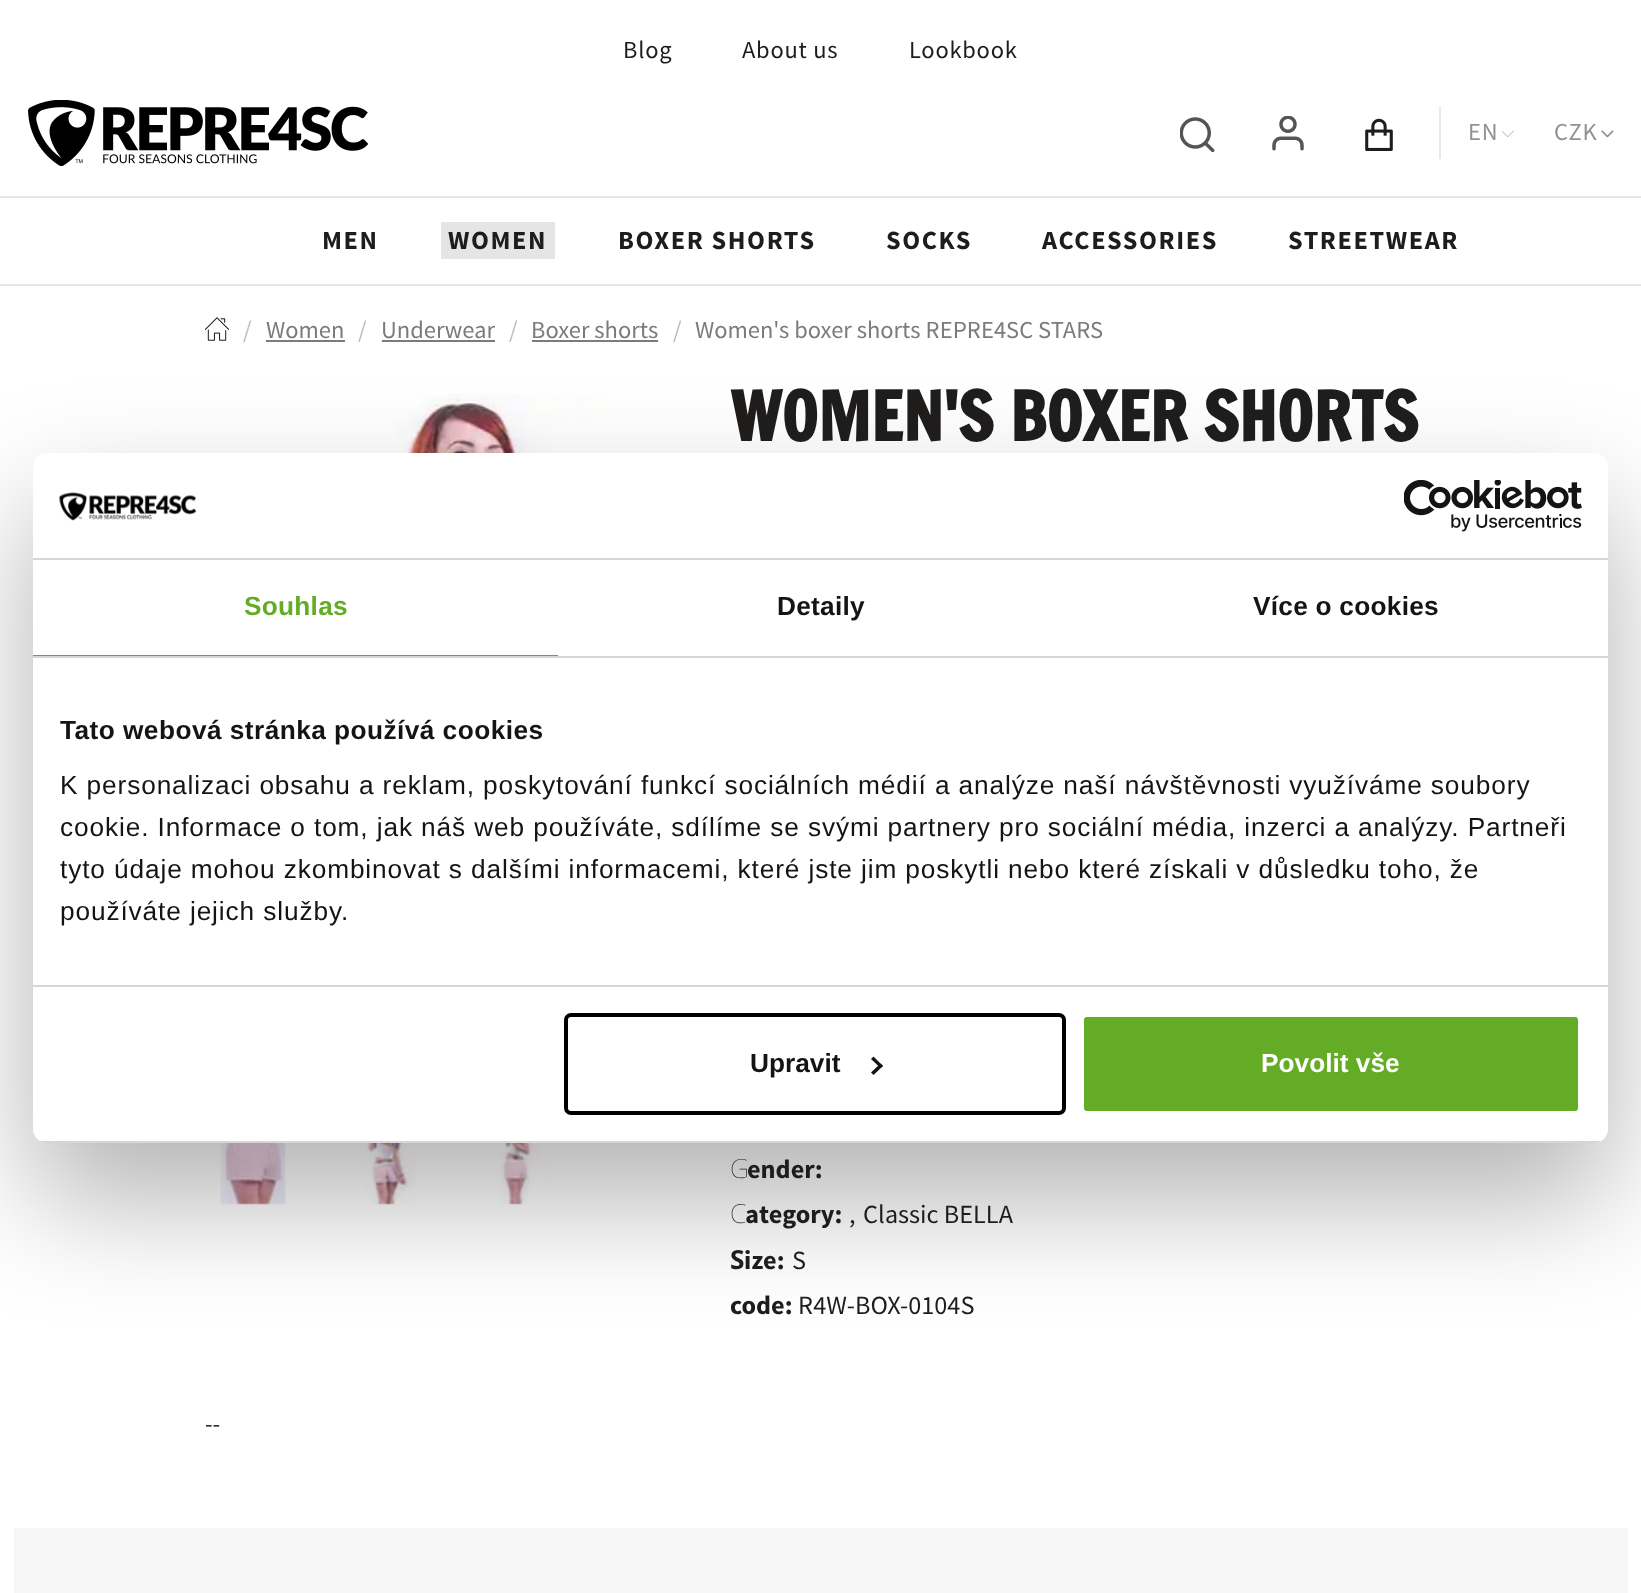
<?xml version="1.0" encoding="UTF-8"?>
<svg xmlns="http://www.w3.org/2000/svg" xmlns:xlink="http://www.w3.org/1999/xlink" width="1641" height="1593">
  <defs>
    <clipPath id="clip1"><rect x="33" y="453" width="1575" height="690" rx="14" /></clipPath>
  </defs>
  <rect width="100%" height="100%" fill="#ffffff" />
  <image x="28" y="100" width="340" height="66" xlink:href="image1.png" />
  <image x="1180" y="117" width="35" height="35" xlink:href="image2.png" />
  <image x="1272" y="116" width="32" height="35" xlink:href="image3.png" />
  <image x="1365" y="118" width="28" height="33" xlink:href="image4.png" />
  <rect x="1439" y="107" width="2" height="52" fill="#e8e8e8" />
  <image x="1502" y="130" width="12" height="7" xlink:href="image5.png" />
  <image x="1601" y="130" width="13" height="8" xlink:href="image6.png" />
  <rect y="196" width="1641" height="2" fill="#e5e5e5" />
  <rect y="284" width="1641" height="2" fill="#e5e5e5" />
  <rect x="441" y="222" width="114" height="37" fill="#e5e5e5" />
  <image x="205" y="317" width="24" height="24" xlink:href="image7.png" />
  <rect x="266" y="340" width="79" height="2" fill="#7b7b7b" />
  <rect x="382" y="340" width="113" height="2" fill="#7b7b7b" />
  <rect x="532" y="340" width="126" height="2" fill="#7b7b7b" />
  <image x="283" y="393" width="320" height="60" xlink:href="image8.png" />
  <image x="220" y="1143" width="66" height="62" xlink:href="image9.png" />
  <image x="365" y="1143" width="50" height="62" xlink:href="image10.png" />
  <image x="500" y="1143" width="51" height="62" xlink:href="image11.png" />
  <rect x="14" y="1528" width="1614" height="65" fill="#f7f6f6" />
  <rect x="33" y="509" width="1575" height="690" rx="14" fill="#000000" fill-opacity="0.3" filter="blur(59.5px)" />
  <rect x="33" y="453" width="1575" height="690" rx="14" fill="#ffffff" />
  <rect x="33" y="558" width="1575" height="2" fill="#d6d6d6" />
  <image x="59" y="492" width="137" height="29" xlink:href="image12.png" />
  <image x="1404" y="480" width="178" height="52" xlink:href="image13.png" />
  <rect x="33" y="656" width="1575" height="2" fill="#d6d6d6" />
  <rect x="33" y="655" width="525" height="1" fill="#64ac25" />
  <rect x="33" y="985" width="1575" height="2" fill="#d6d6d6" />
  <g clip-path="url(#clip1)">
    <rect x="33" y="1141" width="1575" height="2" fill="#d6d6d6" />
  </g>
  <rect x="566" y="1015" width="498" height="98" rx="5" fill="none" stroke="#000000" stroke-width="4" />
  <path d="M 873.5 1056.5 l 9.5 9.5 l -2.5 2 l -9.5 -9 z" fill="#141414" />
  <path d="M 880.5 1063.5 l 2.5 2.5 l -9.5 9 l -2.5 -2.5 z" fill="#141414" />
  <rect x="1082" y="1015" width="498" height="98" rx="5" fill="#64ac25" stroke="#ffffff" stroke-width="4" />
  <text x="623" y="58" style="font-family: Source Sans Pro; font-size: 24.5px; letter-spacing: 0.75px; fill: #1f1c1c">Blog</text>
  <text x="742" y="58" style="font-family: Source Sans Pro; font-size: 24.5px; letter-spacing: 0.75px; fill: #1f1c1c">About us</text>
  <text x="909" y="58" style="font-family: Source Sans Pro; font-size: 24.5px; letter-spacing: 0.75px; fill: #1f1c1c">Lookbook</text>
  <text x="1468" y="140" style="font-family: Source Sans Pro; font-size: 24.5px; letter-spacing: 0.75px; fill: #929292">EN</text>
  <text x="1554" y="140" style="font-family: Source Sans Pro; font-size: 24.5px; letter-spacing: 0.75px; fill: #929292">CZK</text>
  <text x="322" y="249" style="font-family: Source Sans Pro; font-size: 26.25px; font-weight: bold; letter-spacing: 1.6px; fill: #1f1c1c">MEN</text>
  <text x="448" y="249" style="font-family: Source Sans Pro; font-size: 26.25px; font-weight: bold; letter-spacing: 1.6px; fill: #1f1c1c">WOMEN</text>
  <text x="618" y="249" style="font-family: Source Sans Pro; font-size: 26.25px; font-weight: bold; letter-spacing: 1.6px; fill: #1f1c1c">BOXER SHORTS</text>
  <text x="886" y="249" style="font-family: Source Sans Pro; font-size: 26.25px; font-weight: bold; letter-spacing: 1.6px; fill: #1f1c1c">SOCKS</text>
  <text x="1042" y="249" style="font-family: Source Sans Pro; font-size: 26.25px; font-weight: bold; letter-spacing: 1.6px; fill: #1f1c1c">ACCESSORIES</text>
  <text x="1288" y="249" style="font-family: Source Sans Pro; font-size: 26.25px; font-weight: bold; letter-spacing: 1.6px; fill: #1f1c1c">STREETWEAR</text>
  <text x="243" y="338" style="font-family: Source Sans Pro; font-size: 24.5px; fill: #bcbcc0">/</text>
  <text x="266" y="338" style="font-family: Source Sans Pro; font-size: 24.5px; fill: #7b7b7b">Women</text>
  <text x="358" y="338" style="font-family: Source Sans Pro; font-size: 24.5px; fill: #bcbcc0">/</text>
  <text x="381" y="338" style="font-family: Source Sans Pro; font-size: 24.5px; fill: #7b7b7b">Underwear</text>
  <text x="509" y="338" style="font-family: Source Sans Pro; font-size: 24.5px; fill: #bcbcc0">/</text>
  <text x="531" y="338" style="font-family: Source Sans Pro; font-size: 24.5px; fill: #7b7b7b">Boxer shorts</text>
  <text x="673" y="338" style="font-family: Source Sans Pro; font-size: 24.5px; fill: #bcbcc0">/</text>
  <text x="695" y="338" style="font-family: Source Sans Pro; font-size: 24.5px; fill: #7b7b7b">Women's boxer shorts REPRE4SC STARS</text>
  <text x="730" y="441" style="font-family: Francois One; font-size: 66.5px; font-weight: bold; fill: #1f1c1c">WOMEN'S BOXER SHORTS</text>
  <text x="730" y="1178" style="font-family: Noto Sans; font-size: 26.25px; font-weight: 100; fill: #1f1c1c">G</text>
  <text x="747" y="1178" style="font-family: Source Sans Pro; font-size: 26.25px; font-weight: bold; fill: #1f1c1c">ender:</text>
  <text x="730" y="1223" style="font-family: Noto Sans; font-size: 26.25px; font-weight: 100; fill: #1f1c1c">C</text>
  <text x="745" y="1223" style="font-family: Source Sans Pro; font-size: 26.25px; font-weight: bold; fill: #1f1c1c">ategory:</text>
  <text x="849" y="1223" style="font-family: Source Sans Pro; font-size: 26.25px; fill: #1f1c1c">,</text>
  <text x="863" y="1223" style="font-family: Source Sans Pro; font-size: 26.25px; fill: #1f1c1c">Classic BELLA</text>
  <text x="730" y="1269" style="font-family: Noto Sans; font-size: 26.25px; font-weight: bold; fill: #1f1c1c">S</text>
  <text x="744" y="1269" style="font-family: Source Sans Pro; font-size: 26.25px; font-weight: bold; fill: #1f1c1c">ize:</text>
  <text x="792" y="1269" style="font-family: Source Sans Pro; font-size: 26.25px; fill: #1f1c1c">S</text>
  <text x="730" y="1314" style="font-family: Source Sans Pro; font-size: 26.25px; font-weight: bold; fill: #1f1c1c">code:</text>
  <text x="798" y="1314" style="font-family: Source Sans Pro; font-size: 26.25px; fill: #1f1c1c">R4W-BOX-0104S</text>
  <text x="205" y="1432" style="font-family: Source Sans Pro; font-size: 24.5px; fill: #1f1c1c">--</text>
  <text x="244" y="615" style="font-family: Liberation Sans; font-size: 26.25px; font-weight: bold; letter-spacing: 0.25px; fill: #64ac25">Souhlas</text>
  <text x="777" y="615" style="font-family: Liberation Sans; font-size: 26.25px; font-weight: bold; letter-spacing: 0.25px; fill: #141414">Detaily</text>
  <text x="1253" y="615" style="font-family: Liberation Sans; font-size: 26.25px; font-weight: bold; letter-spacing: 0.25px; fill: #141414">Více o cookies</text>
  <text x="60" y="739" style="font-family: Liberation Sans; font-size: 26.25px; font-weight: bold; letter-spacing: 0.45px; fill: #141414">Tato webová stránka používá cookies</text>
  <text x="60" y="794" style="font-family: Liberation Sans; font-size: 26.25px; letter-spacing: 0.88px; fill: #141414">K personalizaci obsahu a reklam, poskytování funkcí sociálních médií a analýze naší návštěvnosti využíváme soubory</text>
  <text x="60" y="836" style="font-family: Liberation Sans; font-size: 26.25px; letter-spacing: 0.88px; fill: #141414">cookie. Informace o tom, jak náš web používáte, sdílíme se svými partnery pro sociální média, inzerci a analýzy. Partneři</text>
  <text x="60" y="878" style="font-family: Liberation Sans; font-size: 26.25px; letter-spacing: 0.88px; fill: #141414">tyto údaje mohou zkombinovat s dalšími informacemi, které jste jim poskytli nebo které získali v důsledku toho, že</text>
  <text x="60" y="920" style="font-family: Liberation Sans; font-size: 26.25px; letter-spacing: 0.88px; fill: #141414">používáte jejich služby.</text>
  <text x="750" y="1072" style="font-family: Liberation Sans; font-size: 26.25px; font-weight: bold; fill: #141414">Upravit</text>
  <text x="1261" y="1072" style="font-family: Liberation Sans; font-size: 26.25px; font-weight: bold; fill: #ffffff">Povolit vše</text>
</svg>
